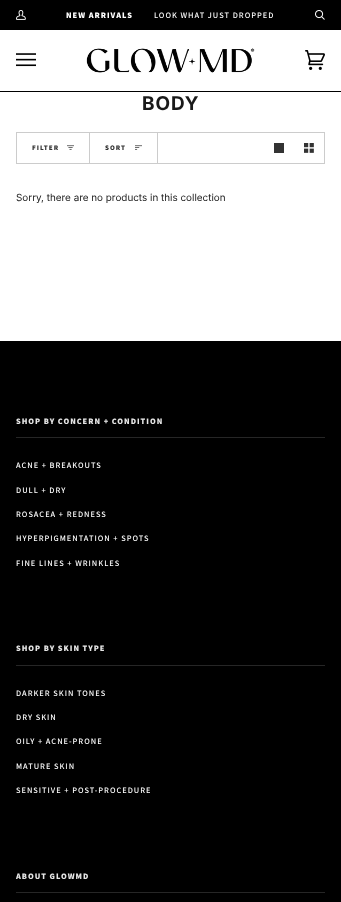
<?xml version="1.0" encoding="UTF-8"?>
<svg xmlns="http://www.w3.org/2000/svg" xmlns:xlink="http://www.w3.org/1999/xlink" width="341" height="902">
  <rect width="100%" height="100%" fill="#ffffff" />
  <rect width="341" height="30" fill="#000000" />
  <image x="16" y="10" width="10" height="10" xlink:href="image1.png" />
  <image x="315" y="10" width="10" height="10" xlink:href="image2.png" />
  <rect y="91" width="341" height="1" fill="#000000" />
  <image x="16" y="53" width="20" height="14" xlink:href="image3.png" />
  <image x="86" y="48" width="169" height="25" xlink:href="image4.png" />
  <image x="305" y="50" width="20" height="20" xlink:href="image5.png" />
  <rect x="16.5" y="132.5" width="308" height="31" fill="none" stroke="#cccccc" />
  <rect x="89" y="133" width="1" height="30" fill="#cccccc" />
  <image x="67" y="145" width="7" height="5" xlink:href="image6.png" />
  <rect x="157" y="133" width="1" height="30" fill="#cccccc" />
  <image x="135" y="145" width="7" height="5" xlink:href="image7.png" />
  <rect x="274" y="143" width="10" height="10" fill="#333333" />
  <image x="304" y="143" width="10" height="10" xlink:href="image8.png" />
  <rect y="341" width="341" height="561" fill="#000000" />
  <rect x="16" y="437" width="309" height="1" fill="#262626" />
  <rect x="16" y="665" width="309" height="1" fill="#262626" />
  <rect x="16" y="892" width="309" height="1" fill="#262626" />
  <text x="66" y="18" style="font-family: Assistant; font-size: 8.3px; font-weight: 800; letter-spacing: 1px; fill: #ffffff">NEW ARRIVALS</text>
  <text x="154" y="18" style="font-family: Assistant; font-size: 8.3px; font-weight: 600; letter-spacing: 1px; fill: #ffffff">LOOK WHAT JUST DROPPED</text>
  <text x="142" y="110" style="font-family: Inter; font-size: 19px; font-weight: bold; letter-spacing: 1px; fill: #1a1a1a">BODY</text>
  <text x="32" y="150" style="font-family: Assistant; font-size: 7px; font-weight: 800; letter-spacing: 1px; fill: #333333">FILTER</text>
  <text x="105" y="150" style="font-family: Assistant; font-size: 7px; font-weight: 800; letter-spacing: 1px; fill: #333333">SORT</text>
  <text x="16" y="201" style="font-family: Inter; font-size: 9.9px; fill: #1a1a1a">Sorry, there are no products in this collection</text>
  <text x="16" y="424" style="font-family: Assistant; font-size: 8.3px; font-weight: 800; letter-spacing: 1px; fill: #e6e6e6">SHOP BY CONCERN + CONDITION</text>
  <text x="16" y="468" style="font-family: Assistant; font-size: 8.3px; font-weight: 600; letter-spacing: 1px; fill: #ffffff">ACNE + BREAKOUTS</text>
  <text x="16" y="493" style="font-family: Assistant; font-size: 8.3px; font-weight: 600; letter-spacing: 1px; fill: #ffffff">DULL + DRY</text>
  <text x="16" y="517" style="font-family: Assistant; font-size: 8.3px; font-weight: 600; letter-spacing: 1px; fill: #ffffff">ROSACEA + REDNESS</text>
  <text x="16" y="541" style="font-family: Assistant; font-size: 8.3px; font-weight: 600; letter-spacing: 1px; fill: #ffffff">HYPERPIGMENTATION + SPOTS</text>
  <text x="16" y="566" style="font-family: Assistant; font-size: 8.3px; font-weight: 600; letter-spacing: 1px; fill: #ffffff">FINE LINES + WRINKLES</text>
  <text x="16" y="651" style="font-family: Assistant; font-size: 8.3px; font-weight: 800; letter-spacing: 1px; fill: #e6e6e6">SHOP BY SKIN TYPE</text>
  <text x="16" y="696" style="font-family: Assistant; font-size: 8.3px; font-weight: 600; letter-spacing: 1px; fill: #ffffff">DARKER SKIN TONES</text>
  <text x="16" y="720" style="font-family: Assistant; font-size: 8.3px; font-weight: 600; letter-spacing: 1px; fill: #ffffff">DRY SKIN</text>
  <text x="16" y="744" style="font-family: Assistant; font-size: 8.3px; font-weight: 600; letter-spacing: 1px; fill: #ffffff">OILY + ACNE-PRONE</text>
  <text x="16" y="769" style="font-family: Assistant; font-size: 8.3px; font-weight: 600; letter-spacing: 1px; fill: #ffffff">MATURE SKIN</text>
  <text x="16" y="793" style="font-family: Assistant; font-size: 8.3px; font-weight: 600; letter-spacing: 1px; fill: #ffffff">SENSITIVE + POST-PROCEDURE</text>
  <text x="16" y="879" style="font-family: Assistant; font-size: 8.3px; font-weight: 800; letter-spacing: 1px; fill: #e6e6e6">ABOUT GLOWMD</text>
</svg>
